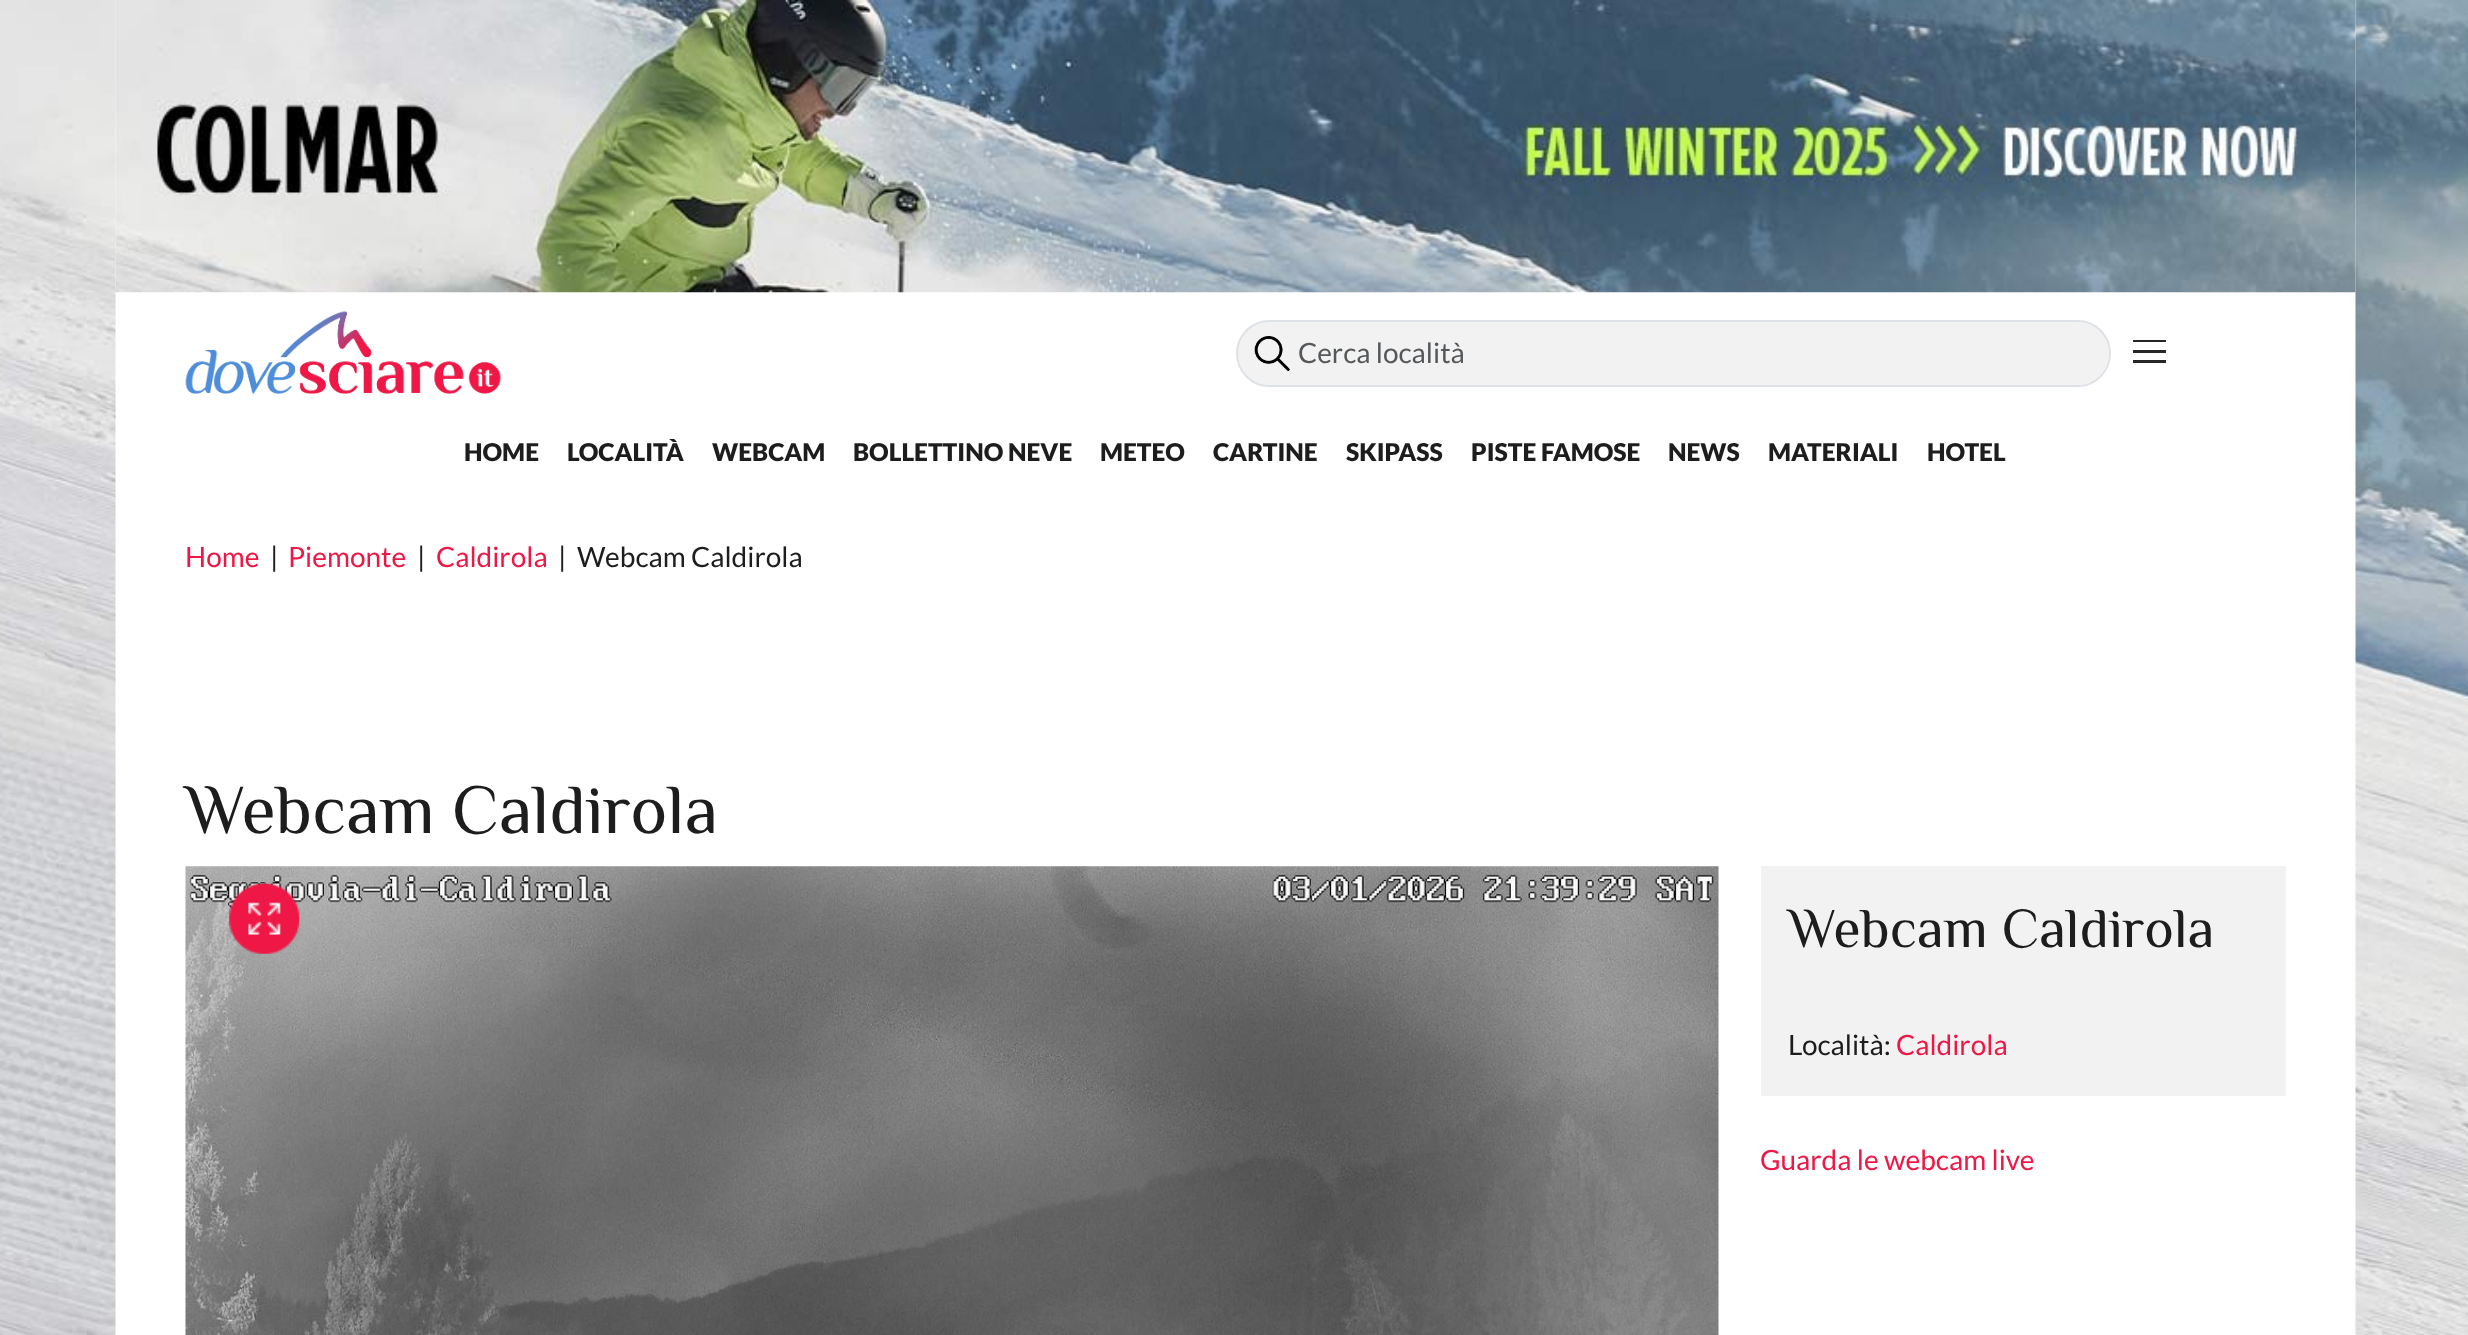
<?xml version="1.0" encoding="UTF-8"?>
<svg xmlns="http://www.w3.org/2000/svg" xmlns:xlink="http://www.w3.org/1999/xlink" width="2468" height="1335">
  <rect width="100%" height="100%" fill="#ffffff" />
  <image x="115" y="0" width="2241" height="293" xlink:href="image1.png" />
  <image x="185" y="311" width="316" height="83" xlink:href="image2.png" />
  <rect x="1237" y="322" width="872" height="63" rx="31.5" fill="#f2f2f2" />
  <image x="1254" y="336" width="36" height="35" xlink:href="image3.png" />
  <rect x="1237" y="321" width="873" height="65" rx="32.5" fill="none" stroke="#dee2e6" stroke-width="2" />
  <rect x="2133" y="340" width="33" height="2" fill="#262626" />
  <rect x="2133" y="350" width="33" height="3" fill="#262626" />
  <rect x="2133" y="360" width="33" height="3" fill="#262626" />
  <image x="0" y="0" width="116" height="1335" xlink:href="image4.png" />
  <image x="2355" y="0" width="113" height="1335" xlink:href="image5.png" />
  <image x="185" y="866" width="1534" height="469" xlink:href="image6.png" />
  <image x="229" y="883" width="71" height="71" xlink:href="image7.png" />
  <rect x="1761" y="866" width="525" height="230" fill="#f2f2f2" />
  <text x="1298" y="363" style="font-family: Lato; font-size: 28px; fill: #55585b">Cerca località</text>
  <text x="464" y="461" style="font-family: Lato; font-size: 24.5px; font-weight: 900; fill: #1d1d1d">HOME</text>
  <text x="567" y="461" style="font-family: Lato; font-size: 24.5px; font-weight: 900; fill: #1d1d1d">LOCALITÀ</text>
  <text x="712" y="461" style="font-family: Lato; font-size: 24.5px; font-weight: 900; fill: #1d1d1d">WEBCAM</text>
  <text x="853" y="461" style="font-family: Lato; font-size: 24.5px; font-weight: 900; fill: #1d1d1d">BOLLETTINO NEVE</text>
  <text x="1100" y="461" style="font-family: Lato; font-size: 24.5px; font-weight: 900; fill: #1d1d1d">METEO</text>
  <text x="1213" y="461" style="font-family: Lato; font-size: 24.5px; font-weight: 900; fill: #1d1d1d">CARTINE</text>
  <text x="1346" y="461" style="font-family: Lato; font-size: 24.5px; font-weight: 900; fill: #1d1d1d">SKIPASS</text>
  <text x="1471" y="461" style="font-family: Lato; font-size: 24.5px; font-weight: 900; fill: #1d1d1d">PISTE FAMOSE</text>
  <text x="1668" y="461" style="font-family: Lato; font-size: 24.5px; font-weight: 900; fill: #1d1d1d">NEWS</text>
  <text x="1768" y="461" style="font-family: Lato; font-size: 24.5px; font-weight: 900; fill: #1d1d1d">MATERIALI</text>
  <text x="1927" y="461" style="font-family: Lato; font-size: 24.5px; font-weight: 900; fill: #1d1d1d">HOTEL</text>
  <text x="185" y="567" style="font-family: Lato; font-size: 28px; fill: #ee1745">Home</text>
  <text x="270" y="567" style="font-family: Lato; font-size: 28px; fill: #1d1d1d">|</text>
  <text x="288" y="567" style="font-family: Lato; font-size: 28px; fill: #ee1745">Piemonte</text>
  <text x="417" y="567" style="font-family: Lato; font-size: 28px; fill: #1d1d1d">|</text>
  <text x="436" y="567" style="font-family: Lato; font-size: 28px; fill: #ee1745">Caldirola</text>
  <text x="558" y="567" style="font-family: Lato; font-size: 28px; fill: #1d1d1d">|</text>
  <text x="577" y="567" style="font-family: Lato; font-size: 28px; fill: #1d1d1d">Webcam Caldirola</text>
  <text x="185" y="833" style="font-family: Philosopher; font-size: 70px; fill: #1d1d1d">Webcam Caldirola</text>
  <text x="1788" y="947" style="font-family: Philosopher; font-size: 56px; fill: #1d1d1d">Webcam Caldirola</text>
  <text x="1788" y="1055" style="font-family: Lato; font-size: 28px; fill: #1d1d1d">Località:</text>
  <text x="1896" y="1055" style="font-family: Lato; font-size: 28px; fill: #ee1745">Caldirola</text>
  <text x="1760" y="1170" style="font-family: Lato; font-size: 28px; fill: #ee1745">Guarda le webcam live</text>
</svg>
